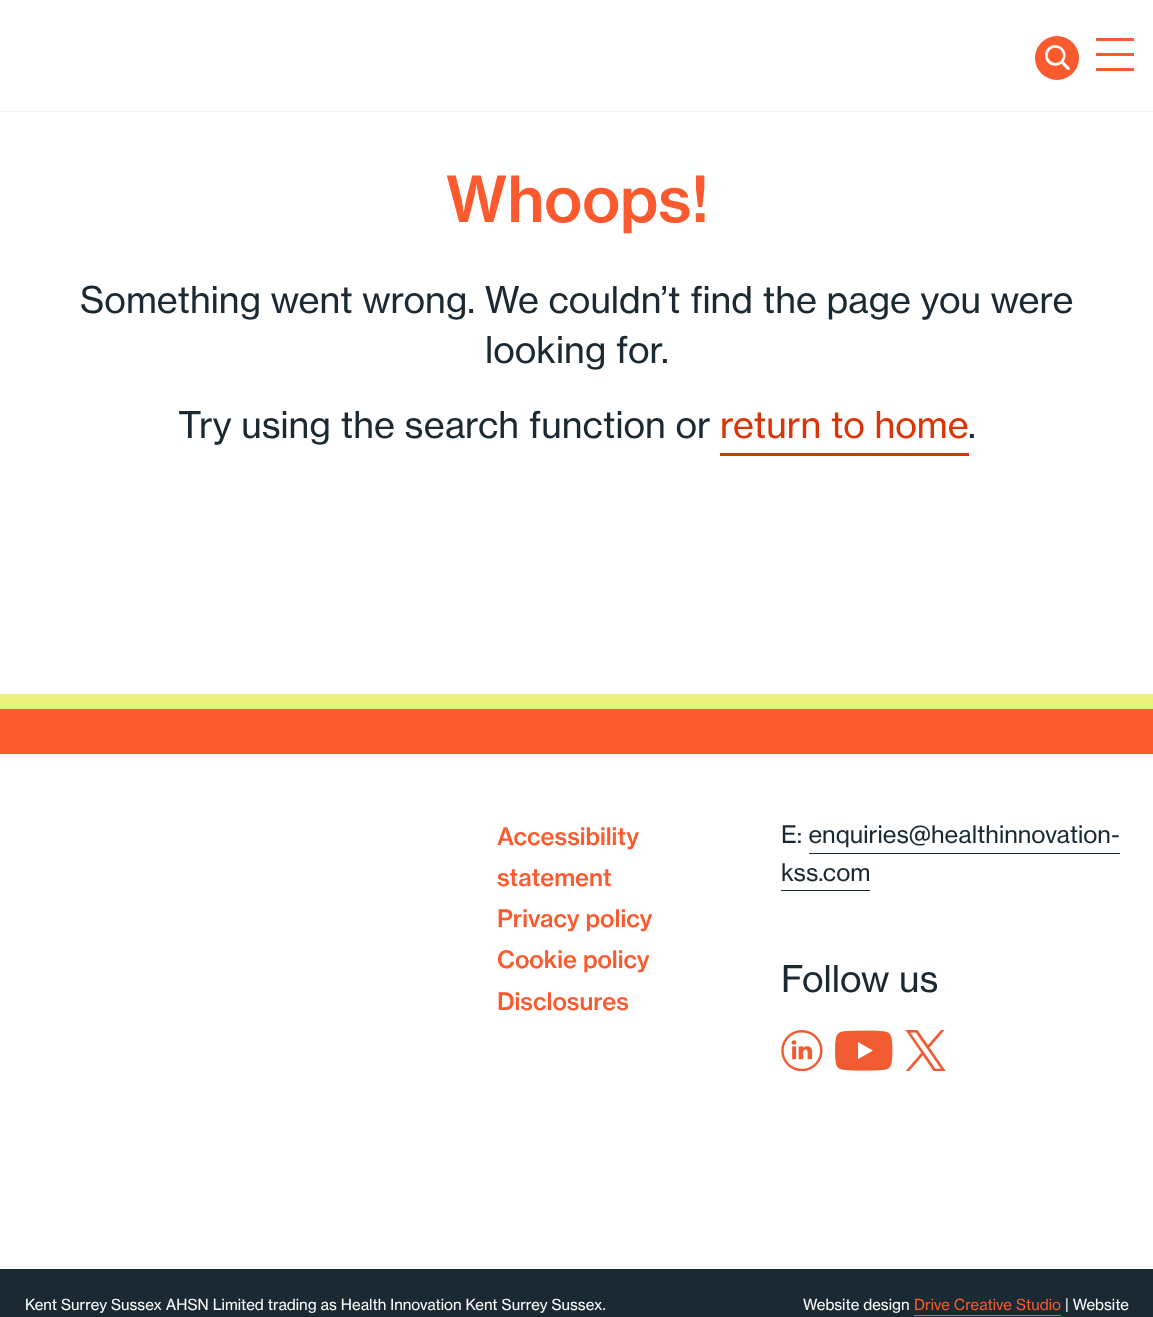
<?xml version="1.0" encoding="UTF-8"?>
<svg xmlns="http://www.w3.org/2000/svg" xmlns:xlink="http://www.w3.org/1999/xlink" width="1153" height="1317">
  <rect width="100%" height="100%" fill="#ffffff" />
  <rect y="111" width="1153" height="1" fill="#f1f1f1" />
  <circle cx="1057" cy="58" r="22" fill="#fa5a2e" />
  <image x="1045" y="45" width="25" height="25" xlink:href="image1.png" />
  <rect x="1096" y="38" width="38" height="3" fill="#fa5a2e" />
  <rect x="1096" y="53" width="38" height="3" fill="#fa5a2e" />
  <rect x="1096" y="68" width="38" height="3" fill="#fa5a2e" />
  <rect x="720" y="453" width="249" height="3" fill="#db3406" />
  <rect y="709" width="1153" height="45" fill="#fa5a2e" />
  <rect y="694" width="1153" height="15" fill="#eaf27c" />
  <rect x="809" y="853" width="311" height="1" fill="#1a2932" />
  <rect x="781" y="890" width="89" height="1" fill="#1a2932" />
  <image x="781" y="1030" width="42" height="41" xlink:href="image2.png" />
  <image x="835" y="1030" width="58" height="41" xlink:href="image3.png" />
  <image x="905" y="1030" width="41" height="41" xlink:href="image4.png" />
  <rect y="1269" width="1153" height="48" fill="#1a2932" />
  <rect x="914" y="1315" width="147" height="1" fill="#fa5a2e" />
  <text x="446" y="222" style="font-family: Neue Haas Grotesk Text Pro; font-size: 62.5px; font-weight: 500; fill: #fa5a2e">Whoops!</text>
  <text x="80" y="313" style="font-family: Neue Haas Grotesk Text Pro; font-size: 36.25px; fill: #1a2932">Something went wrong. We couldn’t find the page you were</text>
  <text x="485" y="363" style="font-family: Neue Haas Grotesk Text Pro; font-size: 36.25px; fill: #1a2932">looking for.</text>
  <text x="178" y="438" style="font-family: Neue Haas Grotesk Text Pro; font-size: 36.25px; fill: #1a2932">Try using the search function or</text>
  <text x="720" y="438" style="font-family: Neue Haas Grotesk Text Pro; font-size: 36.25px; fill: #db3406">return to home</text>
  <text x="968" y="438" style="font-family: Neue Haas Grotesk Text Pro; font-size: 36.25px; fill: #1a2932">.</text>
  <text x="497" y="845" style="font-family: Neue Haas Grotesk Text Pro; font-size: 23.75px; font-weight: 500; fill: #fa5a2e">Accessibility</text>
  <text x="497" y="886" style="font-family: Neue Haas Grotesk Text Pro; font-size: 23.75px; font-weight: 500; fill: #fa5a2e">statement</text>
  <text x="497" y="927" style="font-family: Neue Haas Grotesk Text Pro; font-size: 23.75px; font-weight: 500; fill: #fa5a2e">Privacy policy</text>
  <text x="497" y="968" style="font-family: Neue Haas Grotesk Text Pro; font-size: 23.75px; font-weight: 500; fill: #fa5a2e">Cookie policy</text>
  <text x="497" y="1010" style="font-family: Neue Haas Grotesk Text Pro; font-size: 23.75px; font-weight: 500; fill: #fa5a2e">Disclosures</text>
  <text x="781" y="843" style="font-family: Neue Haas Grotesk Text Pro; font-size: 23.75px; fill: #1a2932">E: enquiries@healthinnovation-</text>
  <text x="781" y="881" style="font-family: Neue Haas Grotesk Text Pro; font-size: 23.75px; fill: #1a2932">kss.com</text>
  <text x="781" y="992" style="font-family: Neue Haas Grotesk Text Pro; font-size: 36.25px; fill: #1a2932">Follow us</text>
  <text x="25" y="1310" style="font-family: Neue Haas Grotesk Text Pro; font-size: 15px; fill: #ffffff">Kent Surrey Sussex AHSN Limited trading as Health Innovation Kent Surrey Sussex.</text>
  <text x="803" y="1310" style="font-family: Neue Haas Grotesk Text Pro; font-size: 15px; fill: #ffffff">Website design</text>
  <text x="914" y="1310" style="font-family: Neue Haas Grotesk Text Pro; font-size: 15px; fill: #fa5a2e">Drive Creative Studio</text>
  <text x="1065" y="1310" style="font-family: Neue Haas Grotesk Text Pro; font-size: 15px; fill: #ffffff">| Website</text>
</svg>
